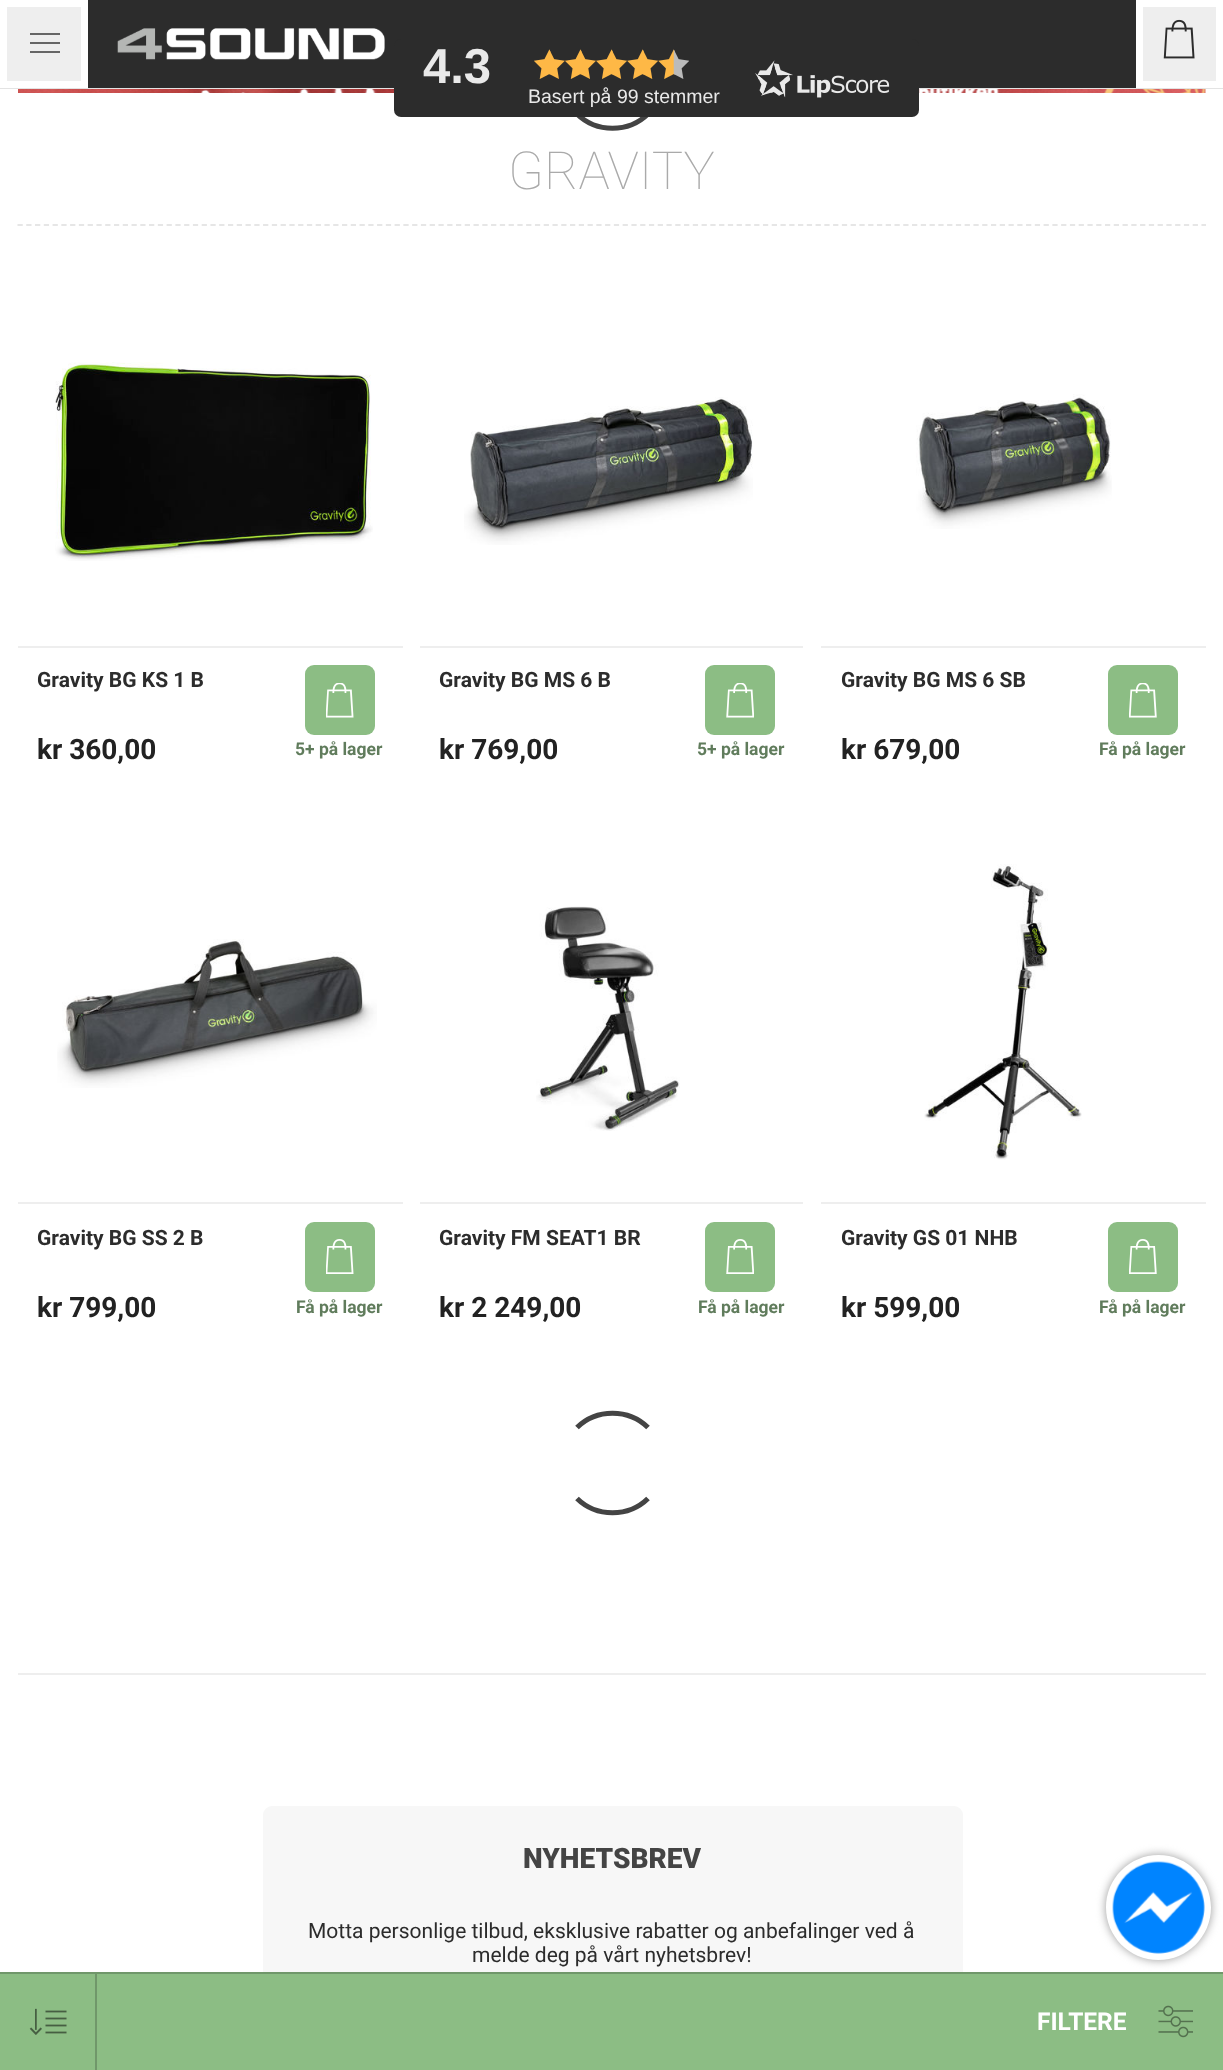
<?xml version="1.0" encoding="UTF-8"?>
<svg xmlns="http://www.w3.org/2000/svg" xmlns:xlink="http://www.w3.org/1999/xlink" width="1223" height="2070">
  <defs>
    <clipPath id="clip1"><path d="M 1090 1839 h 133 v 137 h -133 z m 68.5 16 c 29 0 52.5 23.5 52.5 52.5 c 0 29 -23.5 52.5 -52.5 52.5 c -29 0 -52.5 -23.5 -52.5 -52.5 c 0 -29 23.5 -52.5 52.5 -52.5 z" clip-rule="evenodd" /></clipPath>
  </defs>
  <rect width="100%" height="100%" fill="#ffffff" />
  <rect x="7" y="7" width="74" height="74" fill="#eeeeee" />
  <rect x="30" y="33" width="30" height="2" fill="#666666" />
  <rect x="30" y="42" width="30" height="2" fill="#666666" />
  <rect x="30" y="51" width="30" height="2" fill="#666666" />
  <rect y="88" width="1223" height="1" fill="#e3e3e3" />
  <rect x="88" width="1048" height="88" fill="#2c2c2c" />
  <image x="117" y="28" width="268" height="32" xlink:href="image1.png" />
  <image x="18" y="89" width="1188" height="4" xlink:href="image4.png" />
  <path d="M 648 114 c -19.5 19 -51.5 19 -71 0" fill="none" stroke="#444444" stroke-width="5.2" />
  <rect x="394" y="39" width="525" height="78" rx="7" fill="#2c2c2c" />
  <image x="534" y="49" width="356" height="49" xlink:href="image2.png" />
  <rect x="1143" y="7" width="73" height="74" fill="#eeeeee" />
  <image x="1163" y="19" width="32" height="40" xlink:href="image3.png" />
  <path d="M 17.5 225 h 1188.5" fill="none" stroke="#e6e6e6" stroke-width="1.8" stroke-dasharray="5.25 3.52" />
  <rect x="18" y="646" width="385" height="2" fill="#eeeeee" />
  <image x="55" y="362" width="318" height="199" xlink:href="image5.png" />
  <rect x="305" y="665" width="70" height="70" rx="9" fill="#8cbd84" />
  <image x="326" y="683" width="28" height="35" xlink:href="image6.png" />
  <rect x="420" y="646" width="383" height="2" fill="#eeeeee" />
  <image x="464" y="397" width="289" height="148" xlink:href="image7.png" />
  <rect x="705" y="665" width="70" height="70" rx="9" fill="#8cbd84" />
  <image x="726" y="683" width="28" height="35" xlink:href="image8.png" />
  <rect x="821" y="646" width="385" height="2" fill="#eeeeee" />
  <image x="916" y="394" width="196" height="135" xlink:href="image9.png" />
  <rect x="1108" y="665" width="70" height="70" rx="9" fill="#8cbd84" />
  <image x="1129" y="683" width="28" height="35" xlink:href="image10.png" />
  <rect x="18" y="1202" width="385" height="2" fill="#eeeeee" />
  <image x="57" y="939" width="320" height="149" xlink:href="image11.png" />
  <rect x="305" y="1222" width="70" height="70" rx="9" fill="#8cbd84" />
  <image x="326" y="1239" width="28" height="35" xlink:href="image12.png" />
  <rect x="420" y="1202" width="383" height="2" fill="#eeeeee" />
  <image x="536" y="906" width="144" height="225" xlink:href="image13.png" />
  <rect x="705" y="1222" width="70" height="70" rx="9" fill="#8cbd84" />
  <image x="726" y="1239" width="28" height="35" xlink:href="image14.png" />
  <rect x="821" y="1202" width="385" height="2" fill="#eeeeee" />
  <image x="924" y="864" width="158" height="296" xlink:href="image15.png" />
  <rect x="1108" y="1222" width="70" height="70" rx="9" fill="#8cbd84" />
  <image x="1129" y="1239" width="28" height="35" xlink:href="image16.png" />
  <path d="M 577 1427.5 c 19.5 -19 51.5 -19 71 0" fill="none" stroke="#444444" stroke-width="5.2" />
  <path d="M 648 1498.5 c -19.5 19 -51.5 19 -71 0" fill="none" stroke="#444444" stroke-width="5.2" />
  <rect x="263" y="1806" width="700" height="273" rx="9" fill="#f7f7f7" />
  <rect y="1974" width="1223" height="96" fill="#8cbd84" />
  <rect y="1972" width="1223" height="2" fill="#70976a" />
  <image x="29" y="2008" width="38" height="27" xlink:href="image17.png" />
  <rect x="95" y="1974" width="2" height="96" fill="#70976a" />
  <image x="1158" y="2005" width="35" height="33" xlink:href="image18.png" />
  <rect x="18" y="1673" width="1188" height="2" fill="#eeeeee" />
  <g clip-path="url(#clip1)">
    <rect x="1106" y="1855" width="105" height="105" rx="52.5" fill="#999999" filter="blur(5px)" />
  </g>
  <image x="1112" y="1861" width="93" height="93" xlink:href="image19.png" />
  <text x="423" y="83" style="font-family: Liberation Sans; font-size: 49px; font-weight: bold; fill: #e9e9e9">4.3</text>
  <text x="528" y="103" style="font-family: Liberation Sans; font-size: 19.5px; fill: #e9e9e9">Basert på 99 stemmer</text>
  <text x="508" y="189" style="font-family: Roboto; font-size: 52.5px; font-weight: 100; fill: #aaaaaa">GRAVITY</text>
  <text x="37" y="687" style="font-family: Roboto; font-size: 21px; font-weight: bold; fill: #2c2c2c">Gravity BG KS 1 B</text>
  <text x="37" y="759" style="font-family: Roboto; font-size: 28px; font-weight: bold; fill: #222222">kr 360,00</text>
  <text x="295" y="755" style="font-family: Roboto; font-size: 17.5px; font-weight: bold; fill: #607c5c">5+ på lager</text>
  <text x="439" y="687" style="font-family: Roboto; font-size: 21px; font-weight: bold; fill: #2c2c2c">Gravity BG MS 6 B</text>
  <text x="439" y="759" style="font-family: Roboto; font-size: 28px; font-weight: bold; fill: #222222">kr 769,00</text>
  <text x="697" y="755" style="font-family: Roboto; font-size: 17.5px; font-weight: bold; fill: #607c5c">5+ på lager</text>
  <text x="841" y="687" style="font-family: Roboto; font-size: 21px; font-weight: bold; fill: #2c2c2c">Gravity BG MS 6 SB</text>
  <text x="841" y="759" style="font-family: Roboto; font-size: 28px; font-weight: bold; fill: #222222">kr 679,00</text>
  <text x="1099" y="755" style="font-family: Roboto; font-size: 17.5px; font-weight: bold; fill: #607c5c">Få på lager</text>
  <text x="37" y="1245" style="font-family: Roboto; font-size: 21px; font-weight: bold; fill: #2c2c2c">Gravity BG SS 2 B</text>
  <text x="37" y="1317" style="font-family: Roboto; font-size: 28px; font-weight: bold; fill: #222222">kr 799,00</text>
  <text x="296" y="1313" style="font-family: Roboto; font-size: 17.5px; font-weight: bold; fill: #607c5c">Få på lager</text>
  <text x="439" y="1245" style="font-family: Roboto; font-size: 21px; font-weight: bold; fill: #2c2c2c">Gravity FM SEAT1 BR</text>
  <text x="439" y="1317" style="font-family: Roboto; font-size: 28px; font-weight: bold; fill: #222222">kr 2 249,00</text>
  <text x="698" y="1313" style="font-family: Roboto; font-size: 17.5px; font-weight: bold; fill: #607c5c">Få på lager</text>
  <text x="841" y="1245" style="font-family: Roboto; font-size: 21px; font-weight: bold; fill: #2c2c2c">Gravity GS 01 NHB</text>
  <text x="841" y="1317" style="font-family: Roboto; font-size: 28px; font-weight: bold; fill: #222222">kr 599,00</text>
  <text x="1099" y="1313" style="font-family: Roboto; font-size: 17.5px; font-weight: bold; fill: #607c5c">Få på lager</text>
  <text x="1037" y="2030" style="font-family: Roboto; font-size: 24.5px; font-weight: bold; fill: #ffffff">FILTERE</text>
  <text x="523" y="1868" style="font-family: Roboto; font-size: 28px; font-weight: 900; fill: #444444">NYHETSBREV</text>
  <text x="308" y="1938" style="font-family: Roboto; font-size: 21px; fill: #2c2c2c">Motta personlige tilbud, eksklusive rabatter og anbefalinger ved å</text>
  <text x="472" y="1962" style="font-family: Roboto; font-size: 21px; fill: #2c2c2c">melde deg på vårt nyhetsbrev!</text>
</svg>
